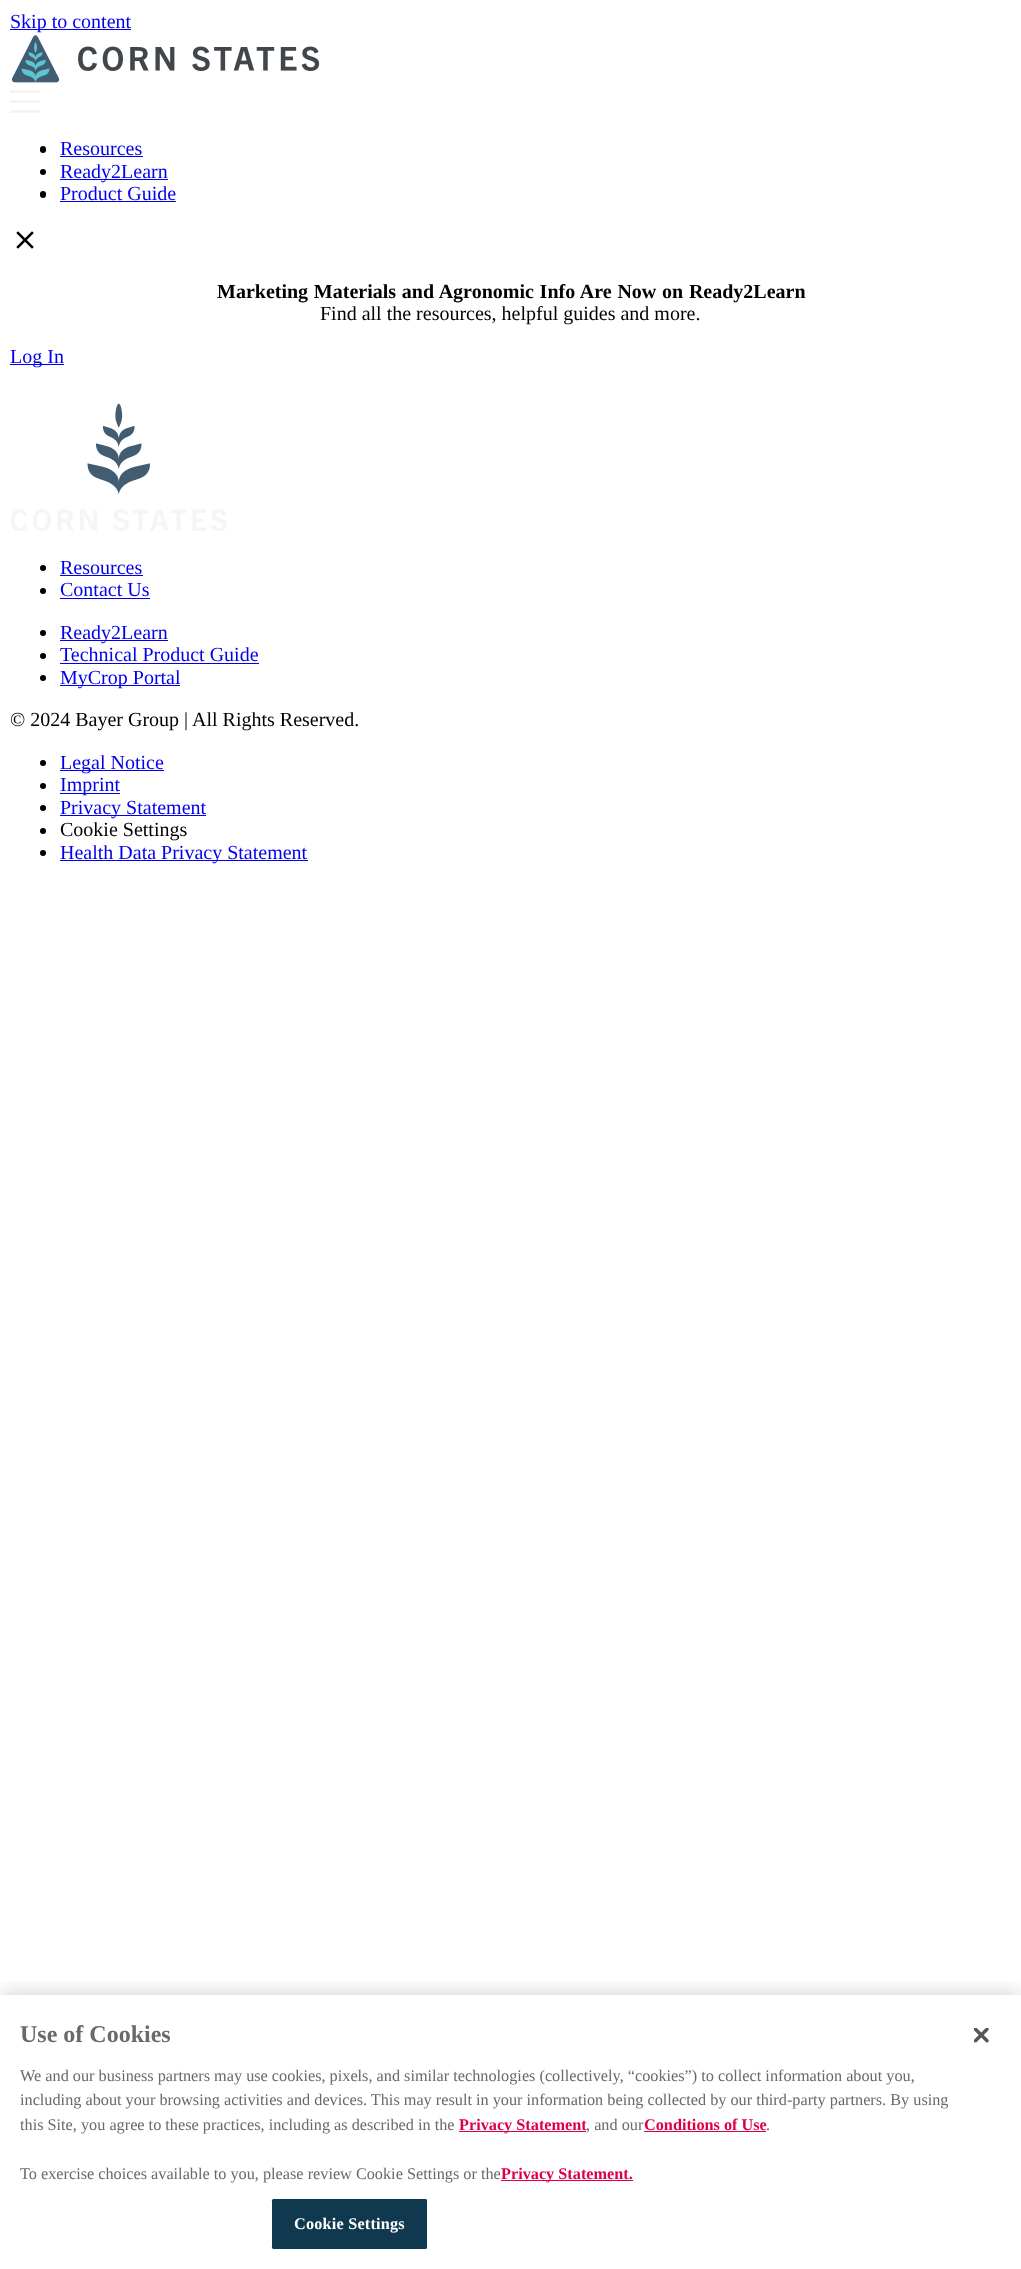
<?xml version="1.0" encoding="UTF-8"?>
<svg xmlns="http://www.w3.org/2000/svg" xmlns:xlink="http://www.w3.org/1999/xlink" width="1021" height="2269">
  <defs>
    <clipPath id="clip1"><rect x="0" y="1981" width="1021" height="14" /></clipPath>
  </defs>
  <rect width="100%" height="100%" fill="#ffffff" />
  <rect x="10" y="29" width="121" height="1" fill="#0000ee" />
  <image x="12" y="35" width="308" height="48" xlink:href="image1.png" />
  <rect x="10" y="90" width="30" height="3" fill="#f5f5f5" />
  <rect x="10" y="100" width="30" height="3" fill="#f5f5f5" />
  <rect x="10" y="110" width="30" height="3" fill="#f5f5f5" />
  <rect x="40" y="146" width="6" height="7" rx="3" fill="#000000" />
  <rect x="60" y="156" width="83" height="1" fill="#0000ee" />
  <circle cx="43" cy="172" r="3" fill="#000000" />
  <rect x="60" y="179" width="108" height="1" fill="#0000ee" />
  <rect x="40" y="191" width="6" height="7" rx="3" fill="#000000" />
  <rect x="60" y="201" width="116" height="1" fill="#0000ee" />
  <image x="16" y="231" width="18" height="18" xlink:href="image2.png" />
  <rect x="10" y="364" width="54" height="1" fill="#0000ee" />
  <image x="11" y="403" width="216" height="128" xlink:href="image3.png" />
  <circle cx="43" cy="568" r="3" fill="#000000" />
  <rect x="60" y="575" width="83" height="1" fill="#0000ee" />
  <circle cx="43" cy="591" r="3" fill="#000000" />
  <rect x="60" y="598" width="90" height="1" fill="#0000ee" />
  <circle cx="43" cy="633" r="3" fill="#000000" />
  <rect x="60" y="640" width="108" height="1" fill="#0000ee" />
  <circle cx="43" cy="656" r="3" fill="#000000" />
  <rect x="60" y="663" width="199" height="1" fill="#0000ee" />
  <circle cx="43" cy="678" r="3" fill="#000000" />
  <rect x="60" y="685" width="120" height="1" fill="#0000ee" />
  <circle cx="43" cy="763" r="3" fill="#000000" />
  <rect x="60" y="770" width="104" height="1" fill="#0000ee" />
  <circle cx="43" cy="786" r="3" fill="#000000" />
  <rect x="60" y="793" width="60" height="1" fill="#0000ee" />
  <circle cx="43" cy="808" r="3" fill="#000000" />
  <rect x="60" y="815" width="146" height="1" fill="#0000ee" />
  <circle cx="43" cy="831" r="3" fill="#000000" />
  <circle cx="43" cy="853" r="3" fill="#000000" />
  <rect x="60" y="860" width="248" height="1" fill="#0000ee" />
  <g clip-path="url(#clip1)">
    <rect y="1995" width="1021" height="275" fill="#000000" fill-opacity="0.2" filter="blur(11px)" />
  </g>
  <rect x="459" y="2131" width="127" height="1" fill="#de0043" />
  <rect x="644" y="2131" width="122" height="1" fill="#de0043" />
  <rect x="501" y="2180" width="132" height="1" fill="#de0043" />
  <rect x="271.5" y="2198.5" width="156" height="51" rx="2" fill="#10384f" stroke="#ffffff" />
  <image x="974" y="2028" width="15" height="15" xlink:href="image4.png" />
  <text x="10" y="28" style="font-family: Liberation Serif; font-size: 20px; fill: #0000ee">Skip to content</text>
  <text x="60" y="155" style="font-family: Liberation Serif; font-size: 20px; fill: #0000ee">Resources</text>
  <text x="60" y="178" style="font-family: Liberation Serif; font-size: 20px; fill: #0000ee">Ready2Learn</text>
  <text x="60" y="200" style="font-family: Liberation Serif; font-size: 20px; fill: #0000ee">Product Guide</text>
  <text x="217" y="298" word-spacing="0.75" style="font-family: Liberation Serif; font-size: 20px; font-weight: bold; fill: #000000">Marketing Materials and Agronomic Info Are Now on Ready2Learn</text>
  <text x="320" y="320" style="font-family: Liberation Serif; font-size: 20px; fill: #000000">Find all the resources, helpful guides and more.</text>
  <text x="10" y="363" style="font-family: Liberation Serif; font-size: 20px; fill: #0000ee">Log In</text>
  <text x="60" y="574" style="font-family: Liberation Serif; font-size: 20px; fill: #0000ee">Resources</text>
  <text x="60" y="596" style="font-family: Liberation Serif; font-size: 20px; fill: #0000ee">Contact Us</text>
  <text x="60" y="639" style="font-family: Liberation Serif; font-size: 20px; fill: #0000ee">Ready2Learn</text>
  <text x="60" y="661" style="font-family: Liberation Serif; font-size: 20px; fill: #0000ee">Technical Product Guide</text>
  <text x="60" y="684" style="font-family: Liberation Serif; font-size: 20px; fill: #0000ee">MyCrop Portal</text>
  <text x="10" y="726" style="font-family: Liberation Serif; font-size: 20px; fill: #000000">© 2024 Bayer Group |</text>
  <text x="192" y="726" style="font-family: Liberation Serif; font-size: 20px; fill: #000000">All Rights Reserved.</text>
  <text x="60" y="769" style="font-family: Liberation Serif; font-size: 20px; fill: #0000ee">Legal Notice</text>
  <text x="60" y="791" style="font-family: Liberation Serif; font-size: 20px; fill: #0000ee">Imprint</text>
  <text x="60" y="814" style="font-family: Liberation Serif; font-size: 20px; fill: #0000ee">Privacy Statement</text>
  <text x="60" y="836" style="font-family: Liberation Serif; font-size: 20px; fill: #000000">Cookie Settings</text>
  <text x="60" y="859" style="font-family: Liberation Serif; font-size: 20px; fill: #0000ee">Health Data Privacy Statement</text>
  <text x="20" y="2042" style="font-family: Liberation Serif; font-size: 24px; font-weight: bold; fill: #696969">Use of Cookies</text>
  <text x="20" y="2081" style="font-family: Liberation Serif; font-size: 16.25px; fill: #696969">We and our business partners may use cookies, pixels, and similar technologies (collectively, “cookies”) to collect information about you,</text>
  <text x="20" y="2105" style="font-family: Liberation Serif; font-size: 16.25px; fill: #696969">including about your browsing activities and devices. This may result in your information being collected by our third-party partners. By using</text>
  <text x="20" y="2130" style="font-family: Liberation Serif; font-size: 16.25px; fill: #696969">this Site, you agree to these practices, including as described in the</text>
  <text x="459" y="2130" style="font-family: Liberation Serif; font-size: 16.25px; font-weight: bold; fill: #de0043">Privacy Statement</text>
  <text x="586" y="2130" style="font-family: Liberation Serif; font-size: 16.25px; fill: #696969">, and our</text>
  <text x="644" y="2130" style="font-family: Liberation Serif; font-size: 16.25px; font-weight: bold; fill: #de0043">Conditions of Use</text>
  <text x="766" y="2130" style="font-family: Liberation Serif; font-size: 16.25px; fill: #696969">.</text>
  <text x="20" y="2179" style="font-family: Liberation Serif; font-size: 16.25px; fill: #696969">To exercise choices available to you, please review Cookie Settings or the</text>
  <text x="501" y="2179" style="font-family: Liberation Serif; font-size: 16.25px; font-weight: bold; fill: #de0043">Privacy Statement.</text>
  <text x="294" y="2229" style="font-family: Liberation Serif; font-size: 16.25px; font-weight: bold; letter-spacing: 0.2px; fill: #ffffff">Cookie Settings</text>
</svg>
